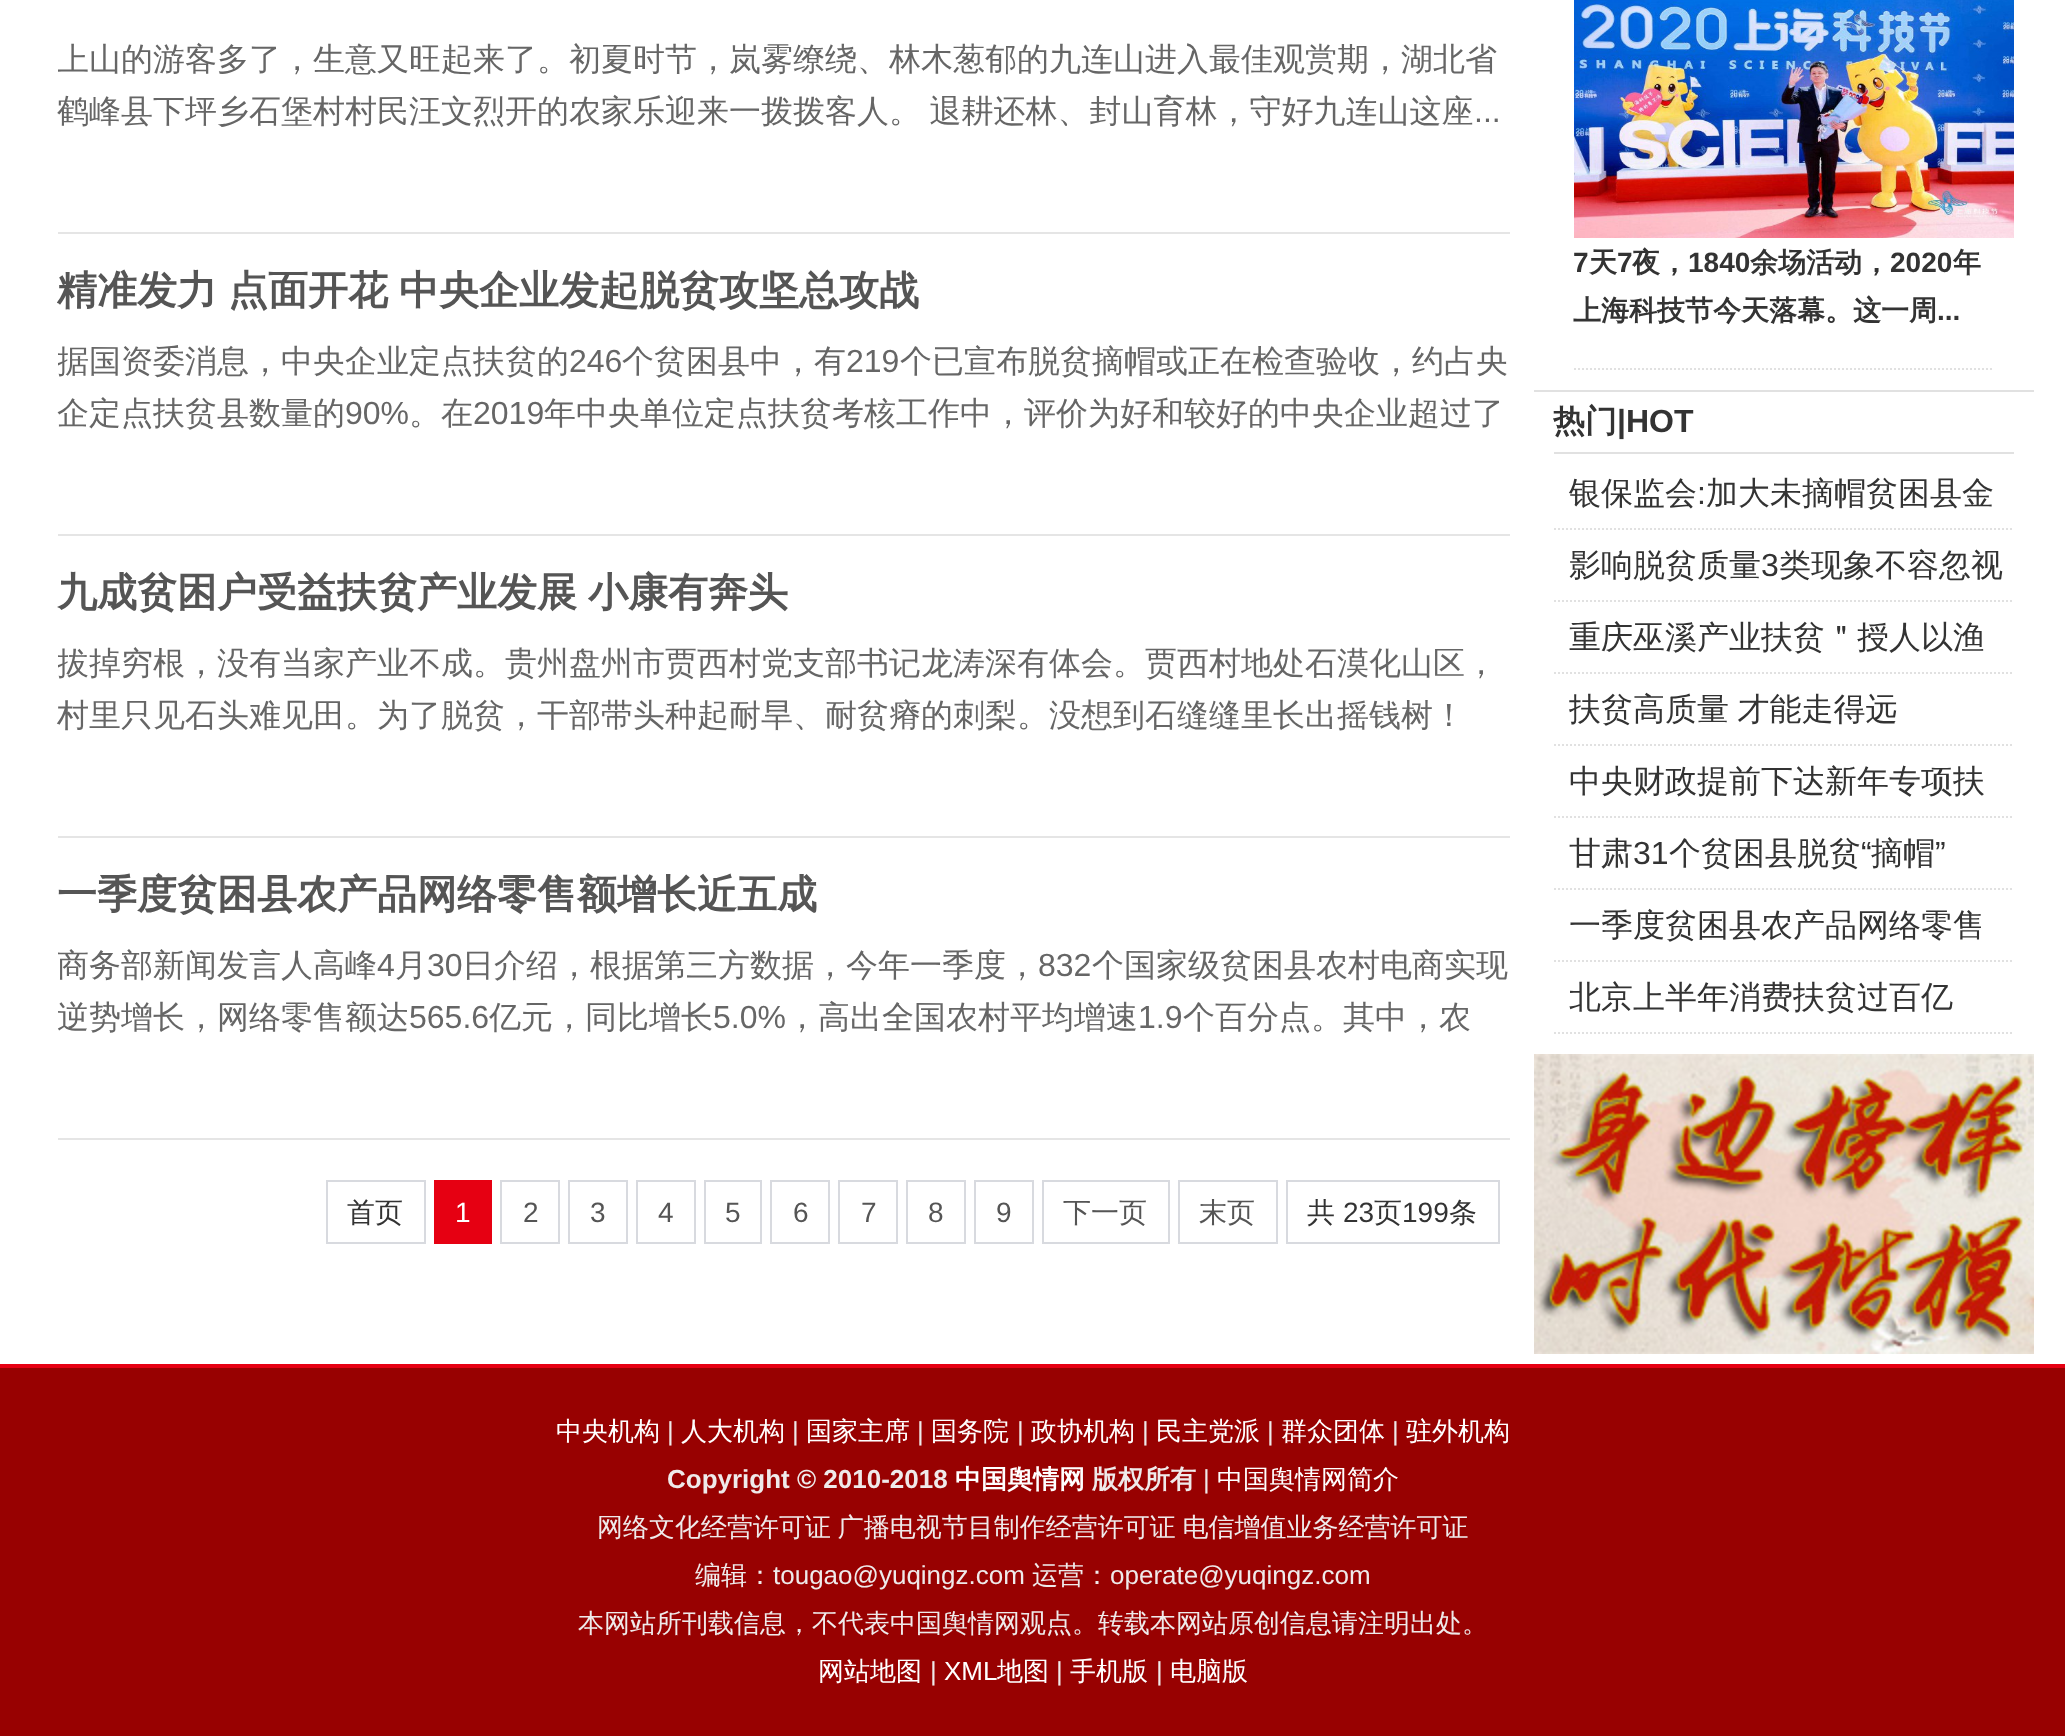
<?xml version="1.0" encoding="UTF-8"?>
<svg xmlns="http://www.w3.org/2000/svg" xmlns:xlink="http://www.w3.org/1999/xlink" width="2065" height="1736">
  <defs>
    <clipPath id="clip1"><rect x="58" y="34" width="1452" height="114" /></clipPath>
    <clipPath id="clip2"><rect x="58" y="336" width="1452" height="114" /></clipPath>
    <clipPath id="clip3"><rect x="58" y="638" width="1452" height="114" /></clipPath>
    <clipPath id="clip4"><rect x="58" y="940" width="1452" height="114" /></clipPath>
  </defs>
  <rect width="100%" height="100%" fill="#ffffff" />
  <rect x="58" y="232" width="1452" height="2" fill="#e5e5e5" />
  <rect x="58" y="534" width="1452" height="2" fill="#e5e5e5" />
  <rect x="58" y="836" width="1452" height="2" fill="#e5e5e5" />
  <rect x="58" y="1138" width="1452" height="2" fill="#e5e5e5" />
  <rect x="327" y="1181" width="98" height="62" fill="none" stroke="#d8dadf" stroke-width="2" />
  <rect x="434" y="1180" width="58" height="64" fill="#e60012" />
  <rect x="501" y="1181" width="58" height="62" fill="none" stroke="#d8dadf" stroke-width="2" />
  <rect x="569" y="1181" width="58" height="62" fill="none" stroke="#d8dadf" stroke-width="2" />
  <rect x="637" y="1181" width="58" height="62" fill="none" stroke="#d8dadf" stroke-width="2" />
  <rect x="705" y="1181" width="56" height="62" fill="none" stroke="#d8dadf" stroke-width="2" />
  <rect x="771" y="1181" width="58" height="62" fill="none" stroke="#d8dadf" stroke-width="2" />
  <rect x="839" y="1181" width="58" height="62" fill="none" stroke="#d8dadf" stroke-width="2" />
  <rect x="907" y="1181" width="58" height="62" fill="none" stroke="#d8dadf" stroke-width="2" />
  <rect x="975" y="1181" width="58" height="62" fill="none" stroke="#d8dadf" stroke-width="2" />
  <rect x="1043" y="1181" width="126" height="62" fill="none" stroke="#d8dadf" stroke-width="2" />
  <rect x="1179" y="1181" width="98" height="62" fill="none" stroke="#d8dadf" stroke-width="2" />
  <rect x="1287" y="1181" width="212" height="62" fill="none" stroke="#d8dadf" stroke-width="2" />
  <path d="M 1574 369 h 420" fill="none" stroke="#e1e1e1" stroke-width="2" stroke-dasharray="2 2" />
  <image x="1574" y="0" width="440" height="238" xlink:href="image1.png" />
  <rect x="1534" y="390" width="500" height="2" fill="#e1e1e1" />
  <rect x="1554" y="452" width="460" height="2" fill="#e1e1e1" />
  <path d="M 1554 529 h 460" fill="none" stroke="#e1e1e1" stroke-width="2" stroke-dasharray="2 2" />
  <path d="M 1554 601 h 460" fill="none" stroke="#e1e1e1" stroke-width="2" stroke-dasharray="2 2" />
  <path d="M 1554 673 h 460" fill="none" stroke="#e1e1e1" stroke-width="2" stroke-dasharray="2 2" />
  <path d="M 1554 745 h 460" fill="none" stroke="#e1e1e1" stroke-width="2" stroke-dasharray="2 2" />
  <path d="M 1554 817 h 460" fill="none" stroke="#e1e1e1" stroke-width="2" stroke-dasharray="2 2" />
  <path d="M 1554 889 h 460" fill="none" stroke="#e1e1e1" stroke-width="2" stroke-dasharray="2 2" />
  <path d="M 1554 961 h 460" fill="none" stroke="#e1e1e1" stroke-width="2" stroke-dasharray="2 2" />
  <path d="M 1554 1033 h 460" fill="none" stroke="#e1e1e1" stroke-width="2" stroke-dasharray="2 2" />
  <image x="1534" y="1054" width="500" height="300" xlink:href="image2.png" />
  <rect y="1368" width="2065" height="368" fill="#980101" />
  <rect y="1364" width="2065" height="4" fill="#e60012" />
  <g clip-path="url(#clip1)">
    <text x="57" y="70" style="font-family: WenQuanYi Zen Hei; font-size: 32px; font-weight: 500; fill: #666666">上山的游客多了，生意又旺起来了。初夏时节，岚雾缭绕、林木葱郁的九连山进入最佳观赏期，湖北省</text>
  </g>
  <text x="57" y="122" word-spacing="-1" style="font-family: WenQuanYi Zen Hei; font-size: 32px; font-weight: 500; fill: #666666">鹤峰县下坪乡石堡村村民汪文烈开的农家乐迎来一拨拨客人。 退耕还林、封山育林，守好九连山这座</text>
  <text x="1474" y="122" style="font-family: Liberation Sans; font-size: 32px; fill: #666666">...</text>
  <text x="57" y="304" word-spacing="-1" style="font-family: WenQuanYi Zen Hei; font-size: 40px; font-weight: bold; fill: #555555">精准发力 点面开花 中央企业发起脱贫攻坚总攻战</text>
  <g clip-path="url(#clip2)">
    <text x="57" y="372" style="font-family: WenQuanYi Zen Hei; font-size: 32px; font-weight: 500; fill: #666666">据国资委消息，中央企业定点扶贫的</text>
  </g>
  <text x="569" y="372" style="font-family: Liberation Sans; font-size: 32px; fill: #666666">246</text>
  <text x="622" y="372" style="font-family: WenQuanYi Zen Hei; font-size: 32px; font-weight: 500; fill: #666666">个贫困县中，有</text>
  <text x="846" y="372" style="font-family: Liberation Sans; font-size: 32px; fill: #666666">219</text>
  <text x="900" y="372" style="font-family: WenQuanYi Zen Hei; font-size: 32px; font-weight: 500; fill: #666666">个已宣布脱贫摘帽或正在检查验收，约占央</text>
  <text x="57" y="424" style="font-family: WenQuanYi Zen Hei; font-size: 32px; font-weight: 500; fill: #666666">企定点扶贫县数量的</text>
  <text x="345" y="424" style="font-family: Liberation Sans; font-size: 32px; fill: #666666">90%</text>
  <text x="409" y="424" style="font-family: WenQuanYi Zen Hei; font-size: 32px; font-weight: 500; fill: #666666">。在</text>
  <text x="473" y="424" style="font-family: Liberation Sans; font-size: 32px; fill: #666666">2019</text>
  <text x="544" y="424" style="font-family: WenQuanYi Zen Hei; font-size: 32px; font-weight: 500; fill: #666666">年中央单位定点扶贫考核工作中，评价为好和较好的中央企业超过了</text>
  <text x="57" y="606" word-spacing="-1" style="font-family: WenQuanYi Zen Hei; font-size: 40px; font-weight: bold; fill: #555555">九成贫困户受益扶贫产业发展 小康有奔头</text>
  <g clip-path="url(#clip3)">
    <text x="57" y="674" style="font-family: WenQuanYi Zen Hei; font-size: 32px; font-weight: 500; fill: #666666">拔掉穷根，没有当家产业不成。贵州盘州市贾西村党支部书记龙涛深有体会。贾西村地处石漠化山区，</text>
  </g>
  <text x="57" y="726" style="font-family: WenQuanYi Zen Hei; font-size: 32px; font-weight: 500; fill: #666666">村里只见石头难见田。为了脱贫，干部带头种起耐旱、耐贫瘠的刺梨。没想到石缝缝里长出摇钱树！</text>
  <text x="57" y="908" style="font-family: WenQuanYi Zen Hei; font-size: 40px; font-weight: bold; fill: #555555">一季度贫困县农产品网络零售额增长近五成</text>
  <g clip-path="url(#clip4)">
    <text x="57" y="976" style="font-family: WenQuanYi Zen Hei; font-size: 32px; font-weight: 500; fill: #666666">商务部新闻发言人高峰</text>
  </g>
  <text x="377" y="976" style="font-family: Liberation Sans; font-size: 32px; fill: #666666">4</text>
  <text x="395" y="976" style="font-family: WenQuanYi Zen Hei; font-size: 32px; font-weight: 500; fill: #666666">月</text>
  <text x="427" y="976" style="font-family: Liberation Sans; font-size: 32px; fill: #666666">30</text>
  <text x="462" y="976" style="font-family: WenQuanYi Zen Hei; font-size: 32px; font-weight: 500; fill: #666666">日介绍，根据第三方数据，今年一季度，</text>
  <text x="1038" y="976" style="font-family: Liberation Sans; font-size: 32px; fill: #666666">832</text>
  <text x="1092" y="976" style="font-family: WenQuanYi Zen Hei; font-size: 32px; font-weight: 500; fill: #666666">个国家级贫困县农村电商实现</text>
  <text x="57" y="1028" style="font-family: WenQuanYi Zen Hei; font-size: 32px; font-weight: 500; fill: #666666">逆势增长，网络零售额达</text>
  <text x="409" y="1028" style="font-family: Liberation Sans; font-size: 32px; fill: #666666">565.6</text>
  <text x="489" y="1028" style="font-family: WenQuanYi Zen Hei; font-size: 32px; font-weight: 500; fill: #666666">亿元，同比增长</text>
  <text x="713" y="1028" style="font-family: Liberation Sans; font-size: 32px; fill: #666666">5.0%</text>
  <text x="786" y="1028" style="font-family: WenQuanYi Zen Hei; font-size: 32px; font-weight: 500; fill: #666666">，高出全国农村平均增速</text>
  <text x="1138" y="1028" style="font-family: Liberation Sans; font-size: 32px; fill: #666666">1.9</text>
  <text x="1183" y="1028" style="font-family: WenQuanYi Zen Hei; font-size: 32px; font-weight: 500; fill: #666666">个百分点。其中，农</text>
  <text x="347" y="1222" style="font-family: WenQuanYi Zen Hei; font-size: 28px; font-weight: 500; fill: #333333">首页</text>
  <text x="455" y="1222" style="font-family: Liberation Sans; font-size: 28px; fill: #ffffff">1</text>
  <text x="523" y="1222" style="font-family: Liberation Sans; font-size: 28px; fill: #555555">2</text>
  <text x="590" y="1222" style="font-family: Liberation Sans; font-size: 28px; fill: #555555">3</text>
  <text x="658" y="1222" style="font-family: Liberation Sans; font-size: 28px; fill: #555555">4</text>
  <text x="725" y="1222" style="font-family: Liberation Sans; font-size: 28px; fill: #555555">5</text>
  <text x="793" y="1222" style="font-family: Liberation Sans; font-size: 28px; fill: #555555">6</text>
  <text x="861" y="1222" style="font-family: Liberation Sans; font-size: 28px; fill: #555555">7</text>
  <text x="928" y="1222" style="font-family: Liberation Sans; font-size: 28px; fill: #555555">8</text>
  <text x="996" y="1222" style="font-family: Liberation Sans; font-size: 28px; fill: #555555">9</text>
  <text x="1063" y="1222" style="font-family: WenQuanYi Zen Hei; font-size: 28px; font-weight: 500; fill: #555555">下一页</text>
  <text x="1199" y="1222" style="font-family: WenQuanYi Zen Hei; font-size: 28px; font-weight: 500; fill: #555555">末页</text>
  <text x="1307" y="1222" style="font-family: WenQuanYi Zen Hei; font-size: 28px; font-weight: 500; fill: #333333">共</text>
  <text x="1343" y="1222" style="font-family: Liberation Sans; font-size: 28px; fill: #333333">23</text>
  <text x="1374" y="1222" style="font-family: WenQuanYi Zen Hei; font-size: 28px; font-weight: 500; fill: #333333">页</text>
  <text x="1402" y="1222" style="font-family: Liberation Sans; font-size: 28px; fill: #333333">199</text>
  <text x="1449" y="1222" style="font-family: WenQuanYi Zen Hei; font-size: 28px; font-weight: 500; fill: #333333">条</text>
  <text x="1573" y="272" style="font-family: Liberation Sans; font-size: 28px; font-weight: bold; fill: #333333">7</text>
  <text x="1589" y="272" style="font-family: WenQuanYi Zen Hei; font-size: 28px; font-weight: bold; fill: #333333">天</text>
  <text x="1617" y="272" style="font-family: Liberation Sans; font-size: 28px; font-weight: bold; fill: #333333">7</text>
  <text x="1632" y="272" style="font-family: WenQuanYi Zen Hei; font-size: 28px; font-weight: bold; fill: #333333">夜，</text>
  <text x="1688" y="272" style="font-family: Liberation Sans; font-size: 28px; font-weight: bold; fill: #333333">1840</text>
  <text x="1750" y="272" style="font-family: WenQuanYi Zen Hei; font-size: 28px; font-weight: bold; fill: #333333">余场活动，</text>
  <text x="1890" y="272" style="font-family: Liberation Sans; font-size: 28px; font-weight: bold; fill: #333333">2020</text>
  <text x="1953" y="272" style="font-family: WenQuanYi Zen Hei; font-size: 28px; font-weight: bold; fill: #333333">年</text>
  <text x="1573" y="320" style="font-family: WenQuanYi Zen Hei; font-size: 28px; font-weight: bold; fill: #333333">上海科技节今天落幕。这一周</text>
  <text x="1937" y="320" style="font-family: Liberation Sans; font-size: 28px; font-weight: bold; fill: #333333">...</text>
  <text x="1553" y="432" style="font-family: WenQuanYi Zen Hei; font-size: 32px; font-weight: bold; fill: #333333">热门</text>
  <text x="1617" y="432" style="font-family: Liberation Sans; font-size: 32px; font-weight: bold; fill: #333333">|HOT</text>
  <text x="1569" y="504" style="font-family: WenQuanYi Zen Hei; font-size: 32px; font-weight: 500; fill: #333333">银保监会</text>
  <text x="1697" y="504" style="font-family: Liberation Sans; font-size: 32px; fill: #333333">:</text>
  <text x="1706" y="504" style="font-family: WenQuanYi Zen Hei; font-size: 32px; font-weight: 500; fill: #333333">加大未摘帽贫困县金</text>
  <text x="1569" y="576" style="font-family: WenQuanYi Zen Hei; font-size: 32px; font-weight: 500; fill: #333333">影响脱贫质量</text>
  <text x="1761" y="576" style="font-family: Liberation Sans; font-size: 32px; fill: #333333">3</text>
  <text x="1779" y="576" style="font-family: WenQuanYi Zen Hei; font-size: 32px; font-weight: 500; fill: #333333">类现象不容忽视</text>
  <text x="1569" y="648" style="font-family: WenQuanYi Zen Hei; font-size: 32px; font-weight: 500; fill: #333333">重庆巫溪产业扶贫＂授人以渔</text>
  <text x="1569" y="720" word-spacing="-1" style="font-family: WenQuanYi Zen Hei; font-size: 32px; font-weight: 500; fill: #333333">扶贫高质量 才能走得远</text>
  <text x="1569" y="792" style="font-family: WenQuanYi Zen Hei; font-size: 32px; font-weight: 500; fill: #333333">中央财政提前下达新年专项扶</text>
  <text x="1569" y="864" style="font-family: WenQuanYi Zen Hei; font-size: 32px; font-weight: 500; fill: #333333">甘肃</text>
  <text x="1633" y="864" style="font-family: Liberation Sans; font-size: 32px; fill: #333333">31</text>
  <text x="1669" y="864" style="font-family: WenQuanYi Zen Hei; font-size: 32px; font-weight: 500; fill: #333333">个贫困县脱贫</text>
  <text x="1861" y="864" style="font-family: Liberation Sans; font-size: 32px; fill: #333333">“</text>
  <text x="1871" y="864" style="font-family: WenQuanYi Zen Hei; font-size: 32px; font-weight: 500; fill: #333333">摘帽</text>
  <text x="1935" y="864" style="font-family: Liberation Sans; font-size: 32px; fill: #333333">”</text>
  <text x="1569" y="936" style="font-family: WenQuanYi Zen Hei; font-size: 32px; font-weight: 500; fill: #333333">一季度贫困县农产品网络零售</text>
  <text x="1569" y="1008" style="font-family: WenQuanYi Zen Hei; font-size: 32px; font-weight: 500; fill: #333333">北京上半年消费扶贫过百亿</text>
  <text x="556" y="1440" style="font-family: WenQuanYi Zen Hei; font-size: 26px; font-weight: 500; fill: #ffffff">中央机构</text>
  <text x="667" y="1440" style="font-family: Liberation Sans; font-size: 26px; fill: #efeaea">|</text>
  <text x="681" y="1440" style="font-family: WenQuanYi Zen Hei; font-size: 26px; font-weight: 500; fill: #ffffff">人大机构</text>
  <text x="792" y="1440" style="font-family: Liberation Sans; font-size: 26px; fill: #efeaea">|</text>
  <text x="806" y="1440" style="font-family: WenQuanYi Zen Hei; font-size: 26px; font-weight: 500; fill: #ffffff">国家主席</text>
  <text x="917" y="1440" style="font-family: Liberation Sans; font-size: 26px; fill: #efeaea">|</text>
  <text x="931" y="1440" style="font-family: WenQuanYi Zen Hei; font-size: 26px; font-weight: 500; fill: #ffffff">国务院</text>
  <text x="1017" y="1440" style="font-family: Liberation Sans; font-size: 26px; fill: #efeaea">|</text>
  <text x="1031" y="1440" style="font-family: WenQuanYi Zen Hei; font-size: 26px; font-weight: 500; fill: #ffffff">政协机构</text>
  <text x="1142" y="1440" style="font-family: Liberation Sans; font-size: 26px; fill: #efeaea">|</text>
  <text x="1156" y="1440" style="font-family: WenQuanYi Zen Hei; font-size: 26px; font-weight: 500; fill: #ffffff">民主党派</text>
  <text x="1267" y="1440" style="font-family: Liberation Sans; font-size: 26px; fill: #efeaea">|</text>
  <text x="1281" y="1440" style="font-family: WenQuanYi Zen Hei; font-size: 26px; font-weight: 500; fill: #ffffff">群众团体</text>
  <text x="1392" y="1440" style="font-family: Liberation Sans; font-size: 26px; fill: #efeaea">|</text>
  <text x="1406" y="1440" style="font-family: WenQuanYi Zen Hei; font-size: 26px; font-weight: 500; fill: #ffffff">驻外机构</text>
  <text x="667" y="1488" style="font-family: Liberation Sans; font-size: 26px; font-weight: bold; fill: #efeaea">Copyright © 2010-2018</text>
  <text x="955" y="1488" style="font-family: WenQuanYi Zen Hei; font-size: 26px; font-weight: bold; fill: #ffffff">中国舆情网</text>
  <text x="1092" y="1488" style="font-family: WenQuanYi Zen Hei; font-size: 26px; font-weight: bold; fill: #efeaea">版权所有</text>
  <text x="1203" y="1488" style="font-family: Liberation Sans; font-size: 26px; fill: #efeaea">|</text>
  <text x="1217" y="1488" style="font-family: WenQuanYi Zen Hei; font-size: 26px; font-weight: 500; fill: #ffffff">中国舆情网简介</text>
  <text x="597" y="1536" word-spacing="-1" style="font-family: WenQuanYi Zen Hei; font-size: 26px; font-weight: 500; fill: #efeaea">网络文化经营许可证 广播电视节目制作经营许可证 电信增值业务经营许可证</text>
  <text x="695" y="1584" style="font-family: WenQuanYi Zen Hei; font-size: 26px; font-weight: 500; fill: #efeaea">编辑：</text>
  <text x="773" y="1584" style="font-family: Liberation Sans; font-size: 26px; fill: #efeaea">tougao@yuqingz.com</text>
  <text x="1032" y="1584" style="font-family: WenQuanYi Zen Hei; font-size: 26px; font-weight: 500; fill: #efeaea">运营：</text>
  <text x="1110" y="1584" style="font-family: Liberation Sans; font-size: 26px; fill: #efeaea">operate@yuqingz.com</text>
  <text x="578" y="1632" style="font-family: WenQuanYi Zen Hei; font-size: 26px; font-weight: 500; fill: #efeaea">本网站所刊载信息，不代表中国舆情网观点。转载本网站原创信息请注明出处。</text>
  <text x="818" y="1680" style="font-family: WenQuanYi Zen Hei; font-size: 26px; font-weight: 500; fill: #ffffff">网站地图</text>
  <text x="930" y="1680" style="font-family: Liberation Sans; font-size: 26px; fill: #efeaea">|</text>
  <text x="944" y="1680" style="font-family: Liberation Sans; font-size: 26px; fill: #ffffff">XML</text>
  <text x="997" y="1680" style="font-family: WenQuanYi Zen Hei; font-size: 26px; font-weight: 500; fill: #ffffff">地图</text>
  <text x="1056" y="1680" style="font-family: Liberation Sans; font-size: 26px; fill: #efeaea">|</text>
  <text x="1070" y="1680" style="font-family: WenQuanYi Zen Hei; font-size: 26px; font-weight: 500; fill: #ffffff">手机版</text>
  <text x="1156" y="1680" style="font-family: Liberation Sans; font-size: 26px; fill: #efeaea">|</text>
  <text x="1170" y="1680" style="font-family: WenQuanYi Zen Hei; font-size: 26px; font-weight: 500; fill: #ffffff">电脑版</text>
</svg>
